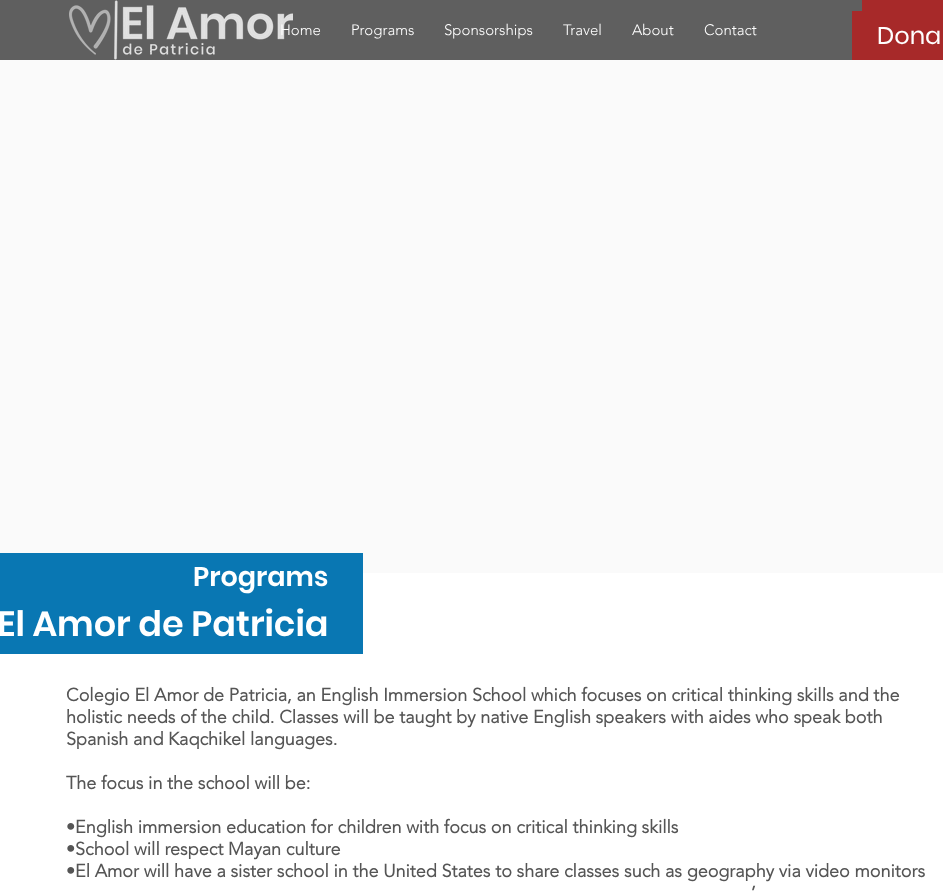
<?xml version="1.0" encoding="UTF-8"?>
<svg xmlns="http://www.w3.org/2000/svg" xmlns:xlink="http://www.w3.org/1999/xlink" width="943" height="893">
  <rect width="100%" height="100%" fill="#ffffff" />
  <rect width="862" height="60" fill="#5f5f5f" />
  <image x="69" y="0" width="224" height="60" xlink:href="image1.png" />
  <rect x="862" width="81" height="11" fill="#a72929" />
  <rect x="852" y="11" width="91" height="49" fill="#a72929" />
  <rect y="60" width="943" height="513" fill="#fafafa" />
  <rect y="553" width="363" height="101" fill="#0977b3" />
  <text x="280" y="35" style="font-family: 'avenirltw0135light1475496'; font-size: 15px; font-weight: 300; fill: #ffffff">Home</text>
  <text x="351" y="35" style="font-family: 'avenirltw0135light1475496'; font-size: 15px; font-weight: 300; fill: #ffffff">Programs</text>
  <text x="444" y="35" style="font-family: 'avenirltw0135light1475496'; font-size: 15px; font-weight: 300; fill: #ffffff">Sponsorships</text>
  <text x="563" y="35" style="font-family: 'avenirltw0135light1475496'; font-size: 15px; font-weight: 300; fill: #ffffff">Travel</text>
  <text x="632" y="35" style="font-family: 'avenirltw0135light1475496'; font-size: 15px; font-weight: 300; fill: #ffffff">About</text>
  <text x="704" y="35" style="font-family: 'avenirltw0135light1475496'; font-size: 15px; font-weight: 300; fill: #ffffff">Contact</text>
  <text x="877" y="44" style="font-family: Poppins; font-size: 24px; fill: #ffffff">Dona</text>
  <text x="193" y="586" style="font-family: Poppins; font-size: 27px; font-weight: 600; fill: #ffffff">Programs</text>
  <text x="-3" y="636" style="font-family: Poppins; font-size: 35px; font-weight: 600; fill: #ffffff">El Amor de Patricia</text>
  <text x="66" y="701" style="font-family: 'avenirltw0135light1475496'; font-size: 18px; font-weight: bold; fill: #555555">Colegio El Amor de Patricia, an English Immersion School which focuses on critical thinking skills and the</text>
  <text x="66" y="723" style="font-family: 'avenirltw0135light1475496'; font-size: 18px; font-weight: bold; fill: #555555">holistic needs of the child. Classes will be taught by native English speakers with aides who speak both</text>
  <text x="66" y="745" style="font-family: 'avenirltw0135light1475496'; font-size: 18px; font-weight: bold; fill: #555555">Spanish and Kaqchikel languages.</text>
  <text x="66" y="789" style="font-family: 'avenirltw0135light1475496'; font-size: 18px; font-weight: bold; fill: #555555">The focus in the school will be:</text>
  <text x="66" y="833" style="font-family: 'avenirltw0135light1475496'; font-size: 18px; font-weight: bold; fill: #555555">•English immersion education for children with focus on critical thinking skills</text>
  <text x="66" y="855" style="font-family: 'avenirltw0135light1475496'; font-size: 18px; font-weight: bold; fill: #555555">•School will respect Mayan culture</text>
  <text x="66" y="877" style="font-family: 'avenirltw0135light1475496'; font-size: 18px; font-weight: bold; fill: #555555">•El Amor will have a sister school in the United States to share classes such as geography via video monitors</text>
  <text x="751" y="899" style="font-family: 'avenirltw0135light1475496'; font-size: 18px; font-weight: bold; fill: #555555">’</text>
</svg>
